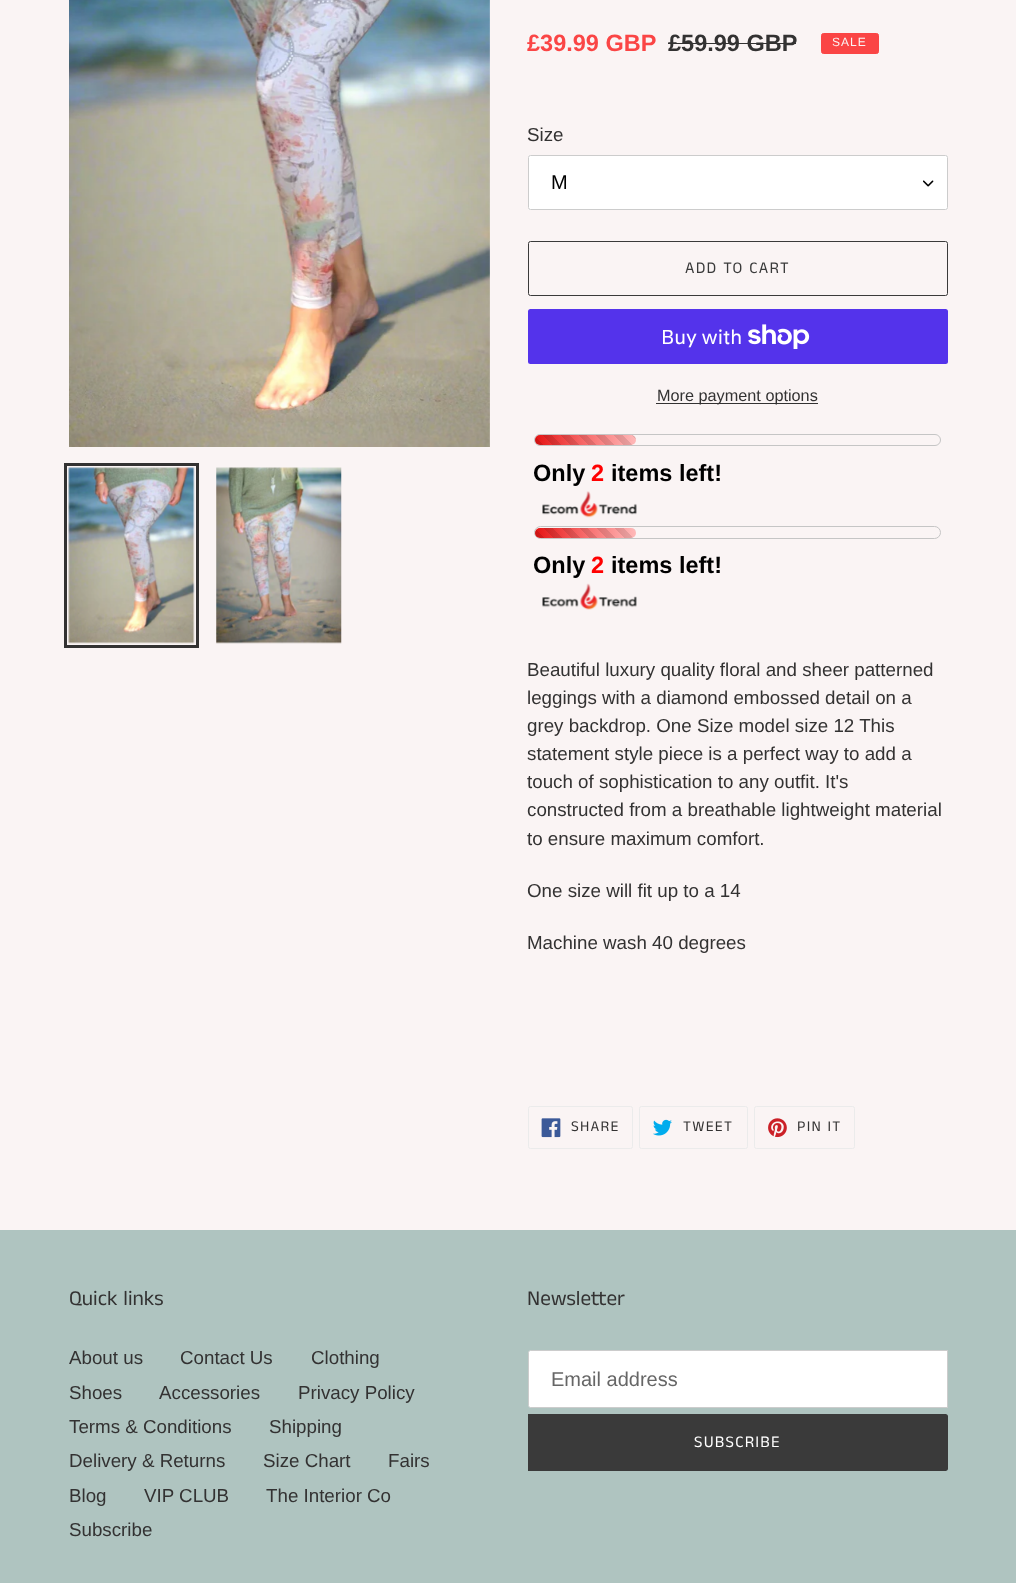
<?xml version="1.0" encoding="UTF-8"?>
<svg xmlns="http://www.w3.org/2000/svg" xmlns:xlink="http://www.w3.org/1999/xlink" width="1016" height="1583">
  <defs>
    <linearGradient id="g1" gradientUnits="userSpaceOnUse" x1="535" y1="440" x2="636" y2="440"><stop offset="0" stop-color="#e51313" /><stop offset="0.5" stop-color="#f76c6c" /><stop offset="1" stop-color="#ffb9b9" /></linearGradient>
    <linearGradient id="g2" gradientUnits="userSpaceOnUse" x1="558" y1="468" x2="620" y2="406"><stop offset="0" stop-color="#010101" stop-opacity="0.1" /><stop offset="0.07" stop-color="#010101" stop-opacity="0.1" /><stop offset="0.07" stop-color="#010101" stop-opacity="0" /><stop offset="0.14" stop-color="#010101" stop-opacity="0" /><stop offset="0.14" stop-color="#010101" stop-opacity="0.1" /><stop offset="0.21" stop-color="#010101" stop-opacity="0.1" /><stop offset="0.21" stop-color="#010101" stop-opacity="0" /><stop offset="0.29" stop-color="#010101" stop-opacity="0" /><stop offset="0.29" stop-color="#010101" stop-opacity="0.1" /><stop offset="0.36" stop-color="#010101" stop-opacity="0.1" /><stop offset="0.36" stop-color="#010101" stop-opacity="0" /><stop offset="0.43" stop-color="#010101" stop-opacity="0" /><stop offset="0.43" stop-color="#010101" stop-opacity="0.1" /><stop offset="0.5" stop-color="#010101" stop-opacity="0.1" /><stop offset="0.5" stop-color="#010101" stop-opacity="0" /><stop offset="0.57" stop-color="#010101" stop-opacity="0" /><stop offset="0.57" stop-color="#010101" stop-opacity="0.1" /><stop offset="0.64" stop-color="#010101" stop-opacity="0.1" /><stop offset="0.64" stop-color="#010101" stop-opacity="0" /><stop offset="0.71" stop-color="#010101" stop-opacity="0" /><stop offset="0.71" stop-color="#010101" stop-opacity="0.1" /><stop offset="0.79" stop-color="#010101" stop-opacity="0.1" /><stop offset="0.79" stop-color="#010101" stop-opacity="0" /><stop offset="0.86" stop-color="#010101" stop-opacity="0" /><stop offset="0.86" stop-color="#010101" stop-opacity="0.1" /><stop offset="0.93" stop-color="#010101" stop-opacity="0.1" /><stop offset="0.93" stop-color="#010101" stop-opacity="0" /><stop offset="1" stop-color="#ffffff" stop-opacity="0" /></linearGradient>
    <linearGradient id="g3" gradientUnits="userSpaceOnUse" x1="535" y1="533" x2="636" y2="533"><stop offset="0" stop-color="#e51313" /><stop offset="0.5" stop-color="#f76c6c" /><stop offset="1" stop-color="#ffb9b9" /></linearGradient>
    <linearGradient id="g4" gradientUnits="userSpaceOnUse" x1="558" y1="560" x2="620" y2="498"><stop offset="0" stop-color="#010101" stop-opacity="0.1" /><stop offset="0.07" stop-color="#010101" stop-opacity="0.1" /><stop offset="0.07" stop-color="#010101" stop-opacity="0" /><stop offset="0.14" stop-color="#010101" stop-opacity="0" /><stop offset="0.14" stop-color="#010101" stop-opacity="0.1" /><stop offset="0.21" stop-color="#010101" stop-opacity="0.1" /><stop offset="0.21" stop-color="#010101" stop-opacity="0" /><stop offset="0.29" stop-color="#010101" stop-opacity="0" /><stop offset="0.29" stop-color="#010101" stop-opacity="0.1" /><stop offset="0.36" stop-color="#010101" stop-opacity="0.1" /><stop offset="0.36" stop-color="#010101" stop-opacity="0" /><stop offset="0.43" stop-color="#010101" stop-opacity="0" /><stop offset="0.43" stop-color="#010101" stop-opacity="0.1" /><stop offset="0.5" stop-color="#010101" stop-opacity="0.1" /><stop offset="0.5" stop-color="#010101" stop-opacity="0" /><stop offset="0.57" stop-color="#010101" stop-opacity="0" /><stop offset="0.57" stop-color="#010101" stop-opacity="0.1" /><stop offset="0.64" stop-color="#010101" stop-opacity="0.1" /><stop offset="0.64" stop-color="#010101" stop-opacity="0" /><stop offset="0.71" stop-color="#010101" stop-opacity="0" /><stop offset="0.71" stop-color="#010101" stop-opacity="0.1" /><stop offset="0.79" stop-color="#010101" stop-opacity="0.1" /><stop offset="0.79" stop-color="#010101" stop-opacity="0" /><stop offset="0.86" stop-color="#010101" stop-opacity="0" /><stop offset="0.86" stop-color="#010101" stop-opacity="0.1" /><stop offset="0.93" stop-color="#010101" stop-opacity="0.1" /><stop offset="0.93" stop-color="#010101" stop-opacity="0" /><stop offset="1" stop-color="#ffffff" stop-opacity="0" /></linearGradient>
  </defs>
  <rect width="100%" height="100%" fill="#faf4f4" />
  <image x="69" y="0" width="421" height="447" xlink:href="image1.png" />
  <rect x="65.5" y="464.5" width="132" height="182" fill="none" stroke="#333232" stroke-width="3" />
  <image x="68" y="467" width="127" height="177" xlink:href="image2.png" />
  <image x="216" y="467" width="126" height="177" xlink:href="image3.png" />
  <rect x="668" y="43" width="128" height="1" fill="#333232" />
  <rect x="821.5" y="33.5" width="57" height="20" rx="2" fill="#fa4545" stroke="#fa4545" />
  <rect x="528" y="155" width="420" height="55" rx="2.5" fill="#ffffff" />
  <image x="923" y="180" width="11" height="7" xlink:href="image4.png" />
  <rect x="528.5" y="155.5" width="419" height="54" rx="2" fill="none" stroke="#cccccc" />
  <rect x="528.5" y="241.5" width="419" height="54" rx="2" fill="none" stroke="#3a3a3a" />
  <rect x="528" y="309" width="420" height="55" rx="2.5" fill="#5433eb" />
  <image x="748" y="324" width="62" height="25" xlink:href="image5.png" />
  <rect x="656" y="403" width="162" height="1" fill="#333232" />
  <rect x="534.5" y="434.5" width="406" height="11" rx="5.5" fill="none" stroke="#c5c5c5" />
  <rect x="535" y="435" width="101" height="10" rx="5" fill="url(#g1)" />
  <rect x="535" y="435" width="101" height="10" rx="5" fill="url(#g2)" />
  <image x="542" y="491" width="95" height="27" xlink:href="image6.png" />
  <rect x="534.5" y="526.5" width="406" height="12" rx="6" fill="none" stroke="#c5c5c5" />
  <rect x="535" y="528" width="101" height="10" rx="5" fill="url(#g3)" />
  <rect x="535" y="528" width="101" height="10" rx="5" fill="url(#g4)" />
  <image x="542" y="583" width="95" height="27" xlink:href="image7.png" />
  <rect x="528.5" y="1106.5" width="104" height="42" rx="2" fill="none" stroke="#ebebeb" />
  <image x="541" y="1118" width="20" height="20" xlink:href="image8.png" />
  <rect x="639.5" y="1106.5" width="108" height="42" rx="2" fill="none" stroke="#ebebeb" />
  <image x="653" y="1119" width="19" height="17" xlink:href="image9.png" />
  <rect x="754.5" y="1106.5" width="100" height="42" rx="2" fill="none" stroke="#ebebeb" />
  <image x="768" y="1118" width="19" height="20" xlink:href="image10.png" />
  <rect y="1230" width="1016" height="353" fill="#afc4c0" />
  <path d="M 530.5 1350.5 h 417 v 57 h -417 c -1 0 -2 -1 -2 -2 v -53 c 0 -1 1 -2 2 -2 z" fill="#ffffff" stroke="#cccccc" />
  <path d="M 528 1414 h 417.5 c 1.5 0 2.5 1 2.5 2.5 v 52 c 0 1.5 -1 2.5 -2.5 2.5 h -417.5 z" fill="#3a3a3a" />
  <text x="527" y="51" style="font-family: Liberation Sans; font-size: 23.5px; font-weight: bold; fill: #fa4545">£39.99 GBP</text>
  <text x="668" y="51" style="font-family: Liberation Sans; font-size: 23.5px; font-weight: bold; fill: #333232">£59.99 GBP</text>
  <text x="832" y="46" style="font-family: Liberation Sans; font-size: 12px; letter-spacing: 1px; fill: #faf4f4">SALE</text>
  <text x="527" y="141" style="font-family: Liberation Sans; font-size: 18.75px; fill: #333232">Size</text>
  <text x="551" y="189" style="font-family: Liberation Sans; font-size: 20px; fill: #000000">M</text>
  <text x="685" y="273" style="font-family: Anek Tamil; font-size: 16.25px; letter-spacing: 1.25px; fill: #3a3a3a">ADD TO CART</text>
  <text x="661" y="344" style="font-family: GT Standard; font-size: 20px; fill: #ffffff">Buy with</text>
  <text x="657" y="401" style="font-family: Liberation Sans; font-size: 16.25px; fill: #333232">More payment options</text>
  <text x="533" y="481" style="font-family: Liberation Sans; font-size: 23.5px; font-weight: bold; fill: #000000">Only</text>
  <text x="591" y="481" style="font-family: Liberation Sans; font-size: 23.5px; font-weight: bold; fill: #ff0000">2</text>
  <text x="611" y="481" style="font-family: Liberation Sans; font-size: 23.5px; font-weight: bold; fill: #000000">items left!</text>
  <text x="533" y="573" style="font-family: Liberation Sans; font-size: 23.5px; font-weight: bold; fill: #000000">Only</text>
  <text x="591" y="573" style="font-family: Liberation Sans; font-size: 23.5px; font-weight: bold; fill: #ff0000">2</text>
  <text x="611" y="573" style="font-family: Liberation Sans; font-size: 23.5px; font-weight: bold; fill: #000000">items left!</text>
  <text x="527" y="676" style="font-family: Liberation Sans; font-size: 18.75px; fill: #333232">Beautiful luxury quality floral and sheer patterned</text>
  <text x="527" y="704" style="font-family: Liberation Sans; font-size: 18.75px; fill: #333232">leggings with a diamond embossed detail on a</text>
  <text x="527" y="732" style="font-family: Liberation Sans; font-size: 18.75px; fill: #333232">grey backdrop. One Size model size 12 This</text>
  <text x="527" y="760" style="font-family: Liberation Sans; font-size: 18.75px; fill: #333232">statement style piece is a perfect way to add a</text>
  <text x="527" y="788" style="font-family: Liberation Sans; font-size: 18.75px; fill: #333232">touch of sophistication to any outfit. It's</text>
  <text x="527" y="816" style="font-family: Liberation Sans; font-size: 18.75px; fill: #333232">constructed from a breathable lightweight material</text>
  <text x="527" y="845" style="font-family: Liberation Sans; font-size: 18.75px; fill: #333232">to ensure maximum comfort.</text>
  <text x="527" y="897" style="font-family: Liberation Sans; font-size: 18.75px; fill: #333232">One size will fit up to a 14</text>
  <text x="527" y="949" style="font-family: Liberation Sans; font-size: 18.75px; fill: #333232">Machine wash 40 degrees</text>
  <text x="571" y="1131" style="font-family: Anek Tamil; font-size: 15px; letter-spacing: 1.25px; fill: #333232">SHARE</text>
  <text x="683" y="1131" style="font-family: Anek Tamil; font-size: 15px; letter-spacing: 1.25px; fill: #333232">TWEET</text>
  <text x="797" y="1131" style="font-family: Anek Tamil; font-size: 15px; letter-spacing: 1.25px; fill: #333232">PIN IT</text>
  <text x="69" y="1305" style="font-family: Anek Tamil; font-size: 21.25px; fill: #333232">Quick links</text>
  <text x="69" y="1364" style="font-family: Liberation Sans; font-size: 18.75px; fill: #333232">About us</text>
  <text x="180" y="1364" style="font-family: Liberation Sans; font-size: 18.75px; fill: #333232">Contact Us</text>
  <text x="311" y="1364" style="font-family: Liberation Sans; font-size: 18.75px; fill: #333232">Clothing</text>
  <text x="69" y="1399" style="font-family: Liberation Sans; font-size: 18.75px; fill: #333232">Shoes</text>
  <text x="159" y="1399" style="font-family: Liberation Sans; font-size: 18.75px; fill: #333232">Accessories</text>
  <text x="298" y="1399" style="font-family: Liberation Sans; font-size: 18.75px; fill: #333232">Privacy Policy</text>
  <text x="69" y="1433" style="font-family: Liberation Sans; font-size: 18.75px; fill: #333232">Terms &amp; Conditions</text>
  <text x="269" y="1433" style="font-family: Liberation Sans; font-size: 18.75px; fill: #333232">Shipping</text>
  <text x="69" y="1467" style="font-family: Liberation Sans; font-size: 18.75px; fill: #333232">Delivery &amp; Returns</text>
  <text x="263" y="1467" style="font-family: Liberation Sans; font-size: 18.75px; fill: #333232">Size Chart</text>
  <text x="388" y="1467" style="font-family: Liberation Sans; font-size: 18.75px; fill: #333232">Fairs</text>
  <text x="69" y="1502" style="font-family: Liberation Sans; font-size: 18.75px; fill: #333232">Blog</text>
  <text x="144" y="1502" style="font-family: Liberation Sans; font-size: 18.75px; fill: #333232">VIP CLUB</text>
  <text x="266" y="1502" style="font-family: Liberation Sans; font-size: 18.75px; fill: #333232">The Interior Co</text>
  <text x="69" y="1536" style="font-family: Liberation Sans; font-size: 18.75px; fill: #333232">Subscribe</text>
  <text x="527" y="1305" style="font-family: Anek Tamil; font-size: 21.25px; fill: #333232">Newsletter</text>
  <text x="551" y="1386" style="font-family: Liberation Sans; font-size: 20px; fill: #666666">Email address</text>
  <text x="694" y="1447" style="font-family: Anek Tamil; font-size: 16.25px; letter-spacing: 1.25px; fill: #ffffff">SUBSCRIBE</text>
</svg>
